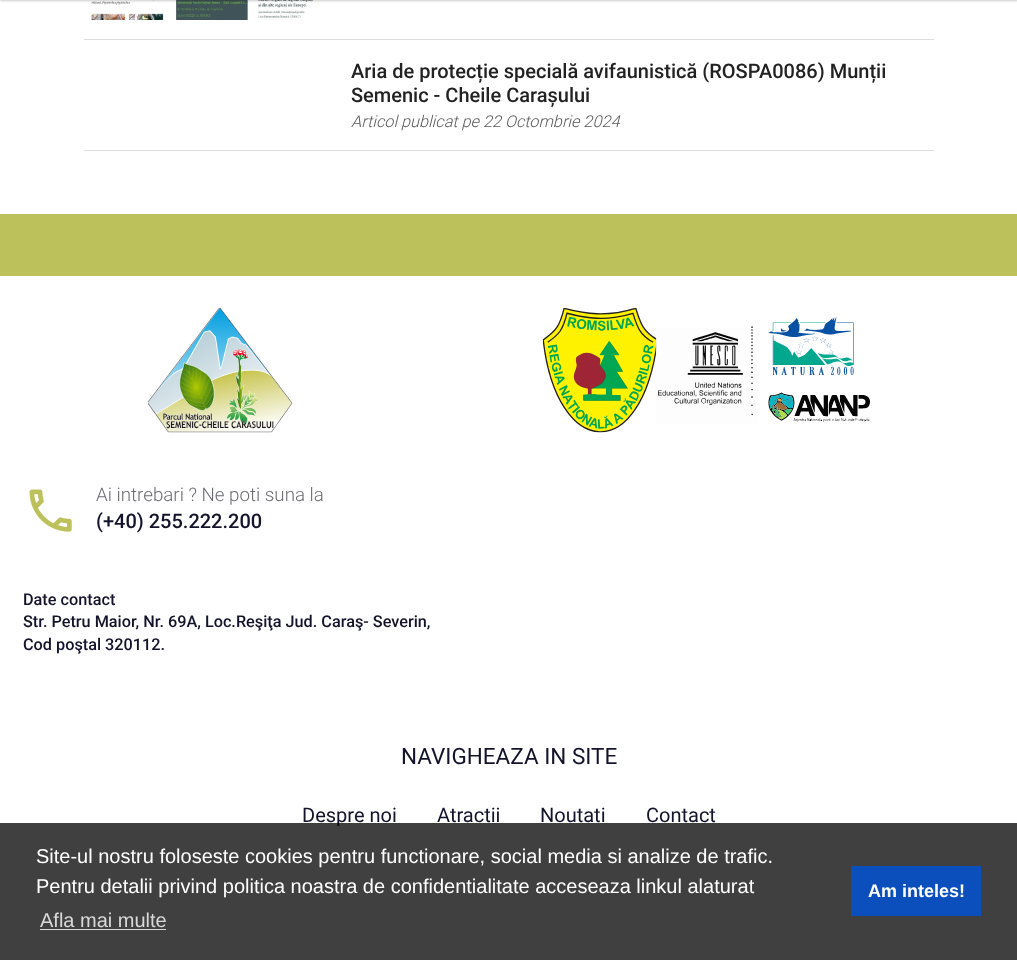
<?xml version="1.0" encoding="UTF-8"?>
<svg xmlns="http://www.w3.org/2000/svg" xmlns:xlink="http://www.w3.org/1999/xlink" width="1017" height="960">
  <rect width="100%" height="100%" fill="#ffffff" />
  <image x="91" y="0" width="222" height="20" xlink:href="image1.png" />
  <rect y="-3" width="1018" height="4" fill="#000000" fill-opacity="0.2" filter="blur(1px)" />
  <rect x="84" y="39" width="850" height="1" fill="#dddddd" />
  <rect x="84" y="150" width="850" height="1" fill="#dddddd" />
  <rect y="214" width="1017" height="62" fill="#bcc15b" />
  <image x="148" y="308" width="145" height="125" xlink:href="image2.png" />
  <image x="543" y="308" width="327" height="125" xlink:href="image3.png" />
  <image x="29" y="489" width="43" height="43" xlink:href="image4.png" />
  <text x="351" y="78" style="font-family: Roboto; font-size: 20px; font-weight: 500; fill: #222222">Aria de protecție specială avifaunistică (ROSPA0086) Munții</text>
  <text x="351" y="102" style="font-family: Roboto; font-size: 20px; font-weight: 500; fill: #222222">Semenic - Cheile Carașului</text>
  <text x="351" y="127" style="font-family: Roboto; font-size: 16.25px; font-weight: 300; font-style: italic; fill: #595959">Articol publicat pe 22 Octombrie 2024</text>
  <text x="96" y="501" style="font-family: Roboto; font-size: 18.75px; font-weight: 300; fill: #6b6c72">Ai intrebari ? Ne poti suna la</text>
  <text x="96" y="528" style="font-family: Roboto; font-size: 20px; font-weight: 500; fill: #13132c">(+40) 255.222.200</text>
  <text x="23" y="605" style="font-family: Roboto; font-size: 16.25px; font-weight: 500; fill: #13132c">Date contact</text>
  <text x="23" y="627" style="font-family: Roboto; font-size: 16.25px; font-weight: 500; fill: #13132c">Str. Petru Maior, Nr. 69A, Loc.Reşiţa Jud. Caraş- Severin,</text>
  <text x="23" y="650" style="font-family: Roboto; font-size: 16.25px; font-weight: 500; fill: #13132c">Cod poştal 320112.</text>
  <text x="401" y="764" style="font-family: Roboto; font-size: 22.5px; fill: #13132c">NAVIGHEAZA IN SITE</text>
  <text x="302" y="822" style="font-family: Roboto; font-size: 20px; fill: #13132c">Despre noi</text>
  <text x="437" y="822" style="font-family: Roboto; font-size: 20px; fill: #13132c">Atractii</text>
  <text x="540" y="822" style="font-family: Roboto; font-size: 20px; fill: #13132c">Noutati</text>
  <text x="646" y="822" style="font-family: Roboto; font-size: 20px; fill: #13132c">Contact</text>
  <rect y="823" width="1017" height="137" fill="#000000" fill-opacity="0.75" />
  <text x="36" y="863" style="font-family: Liberation Sans; font-size: 20px; fill: #ffffff">Site-ul nostru foloseste cookies pentru functionare, social media si analize de trafic.</text>
  <text x="36" y="893" style="font-family: Liberation Sans; font-size: 20px; fill: #ffffff">Pentru detalii privind politica noastra de confidentialitate acceseaza linkul alaturat</text>
  <text x="40" y="927" style="font-family: Liberation Sans; font-size: 20px; fill: #d9d9d9">Afla mai multe</text>
  <rect x="40" y="929" width="126" height="1" fill="#d9d9d9" />
  <rect x="851" y="866" width="130" height="50" fill="#0b4fbc" />
  <text x="868" y="897" style="font-family: Liberation Sans; font-size: 18px; font-weight: bold; fill: #ffffff">Am inteles!</text>
</svg>
